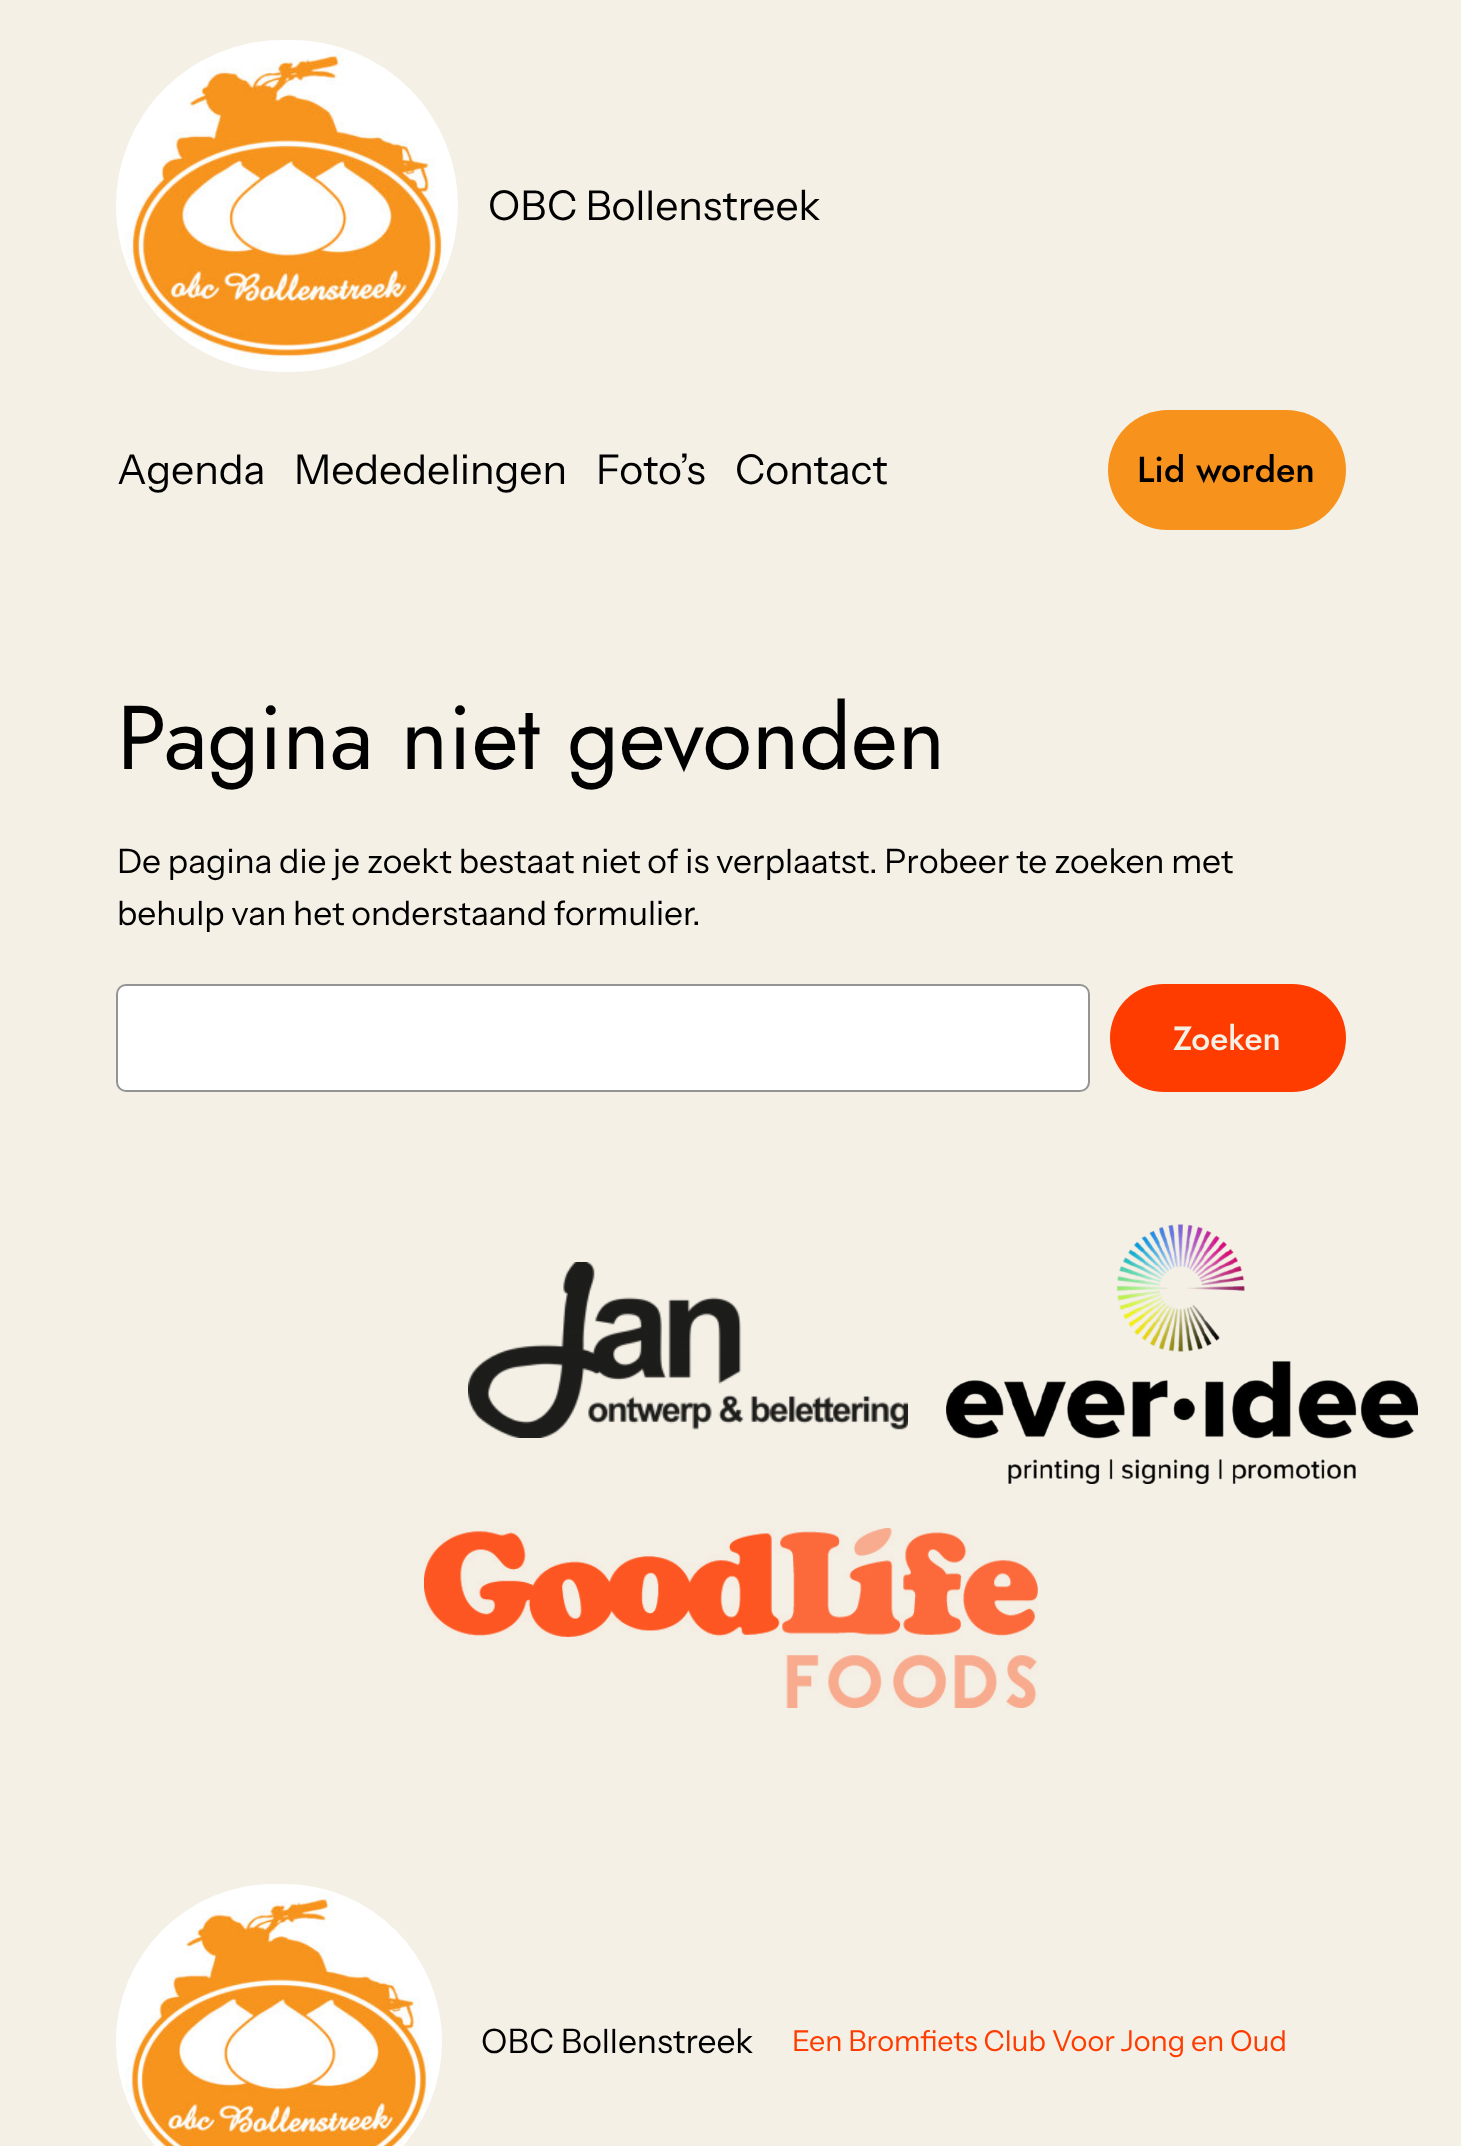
<?xml version="1.0" encoding="UTF-8"?>
<svg xmlns="http://www.w3.org/2000/svg" xmlns:xlink="http://www.w3.org/1999/xlink" width="1461" height="2146">
  <rect width="100%" height="100%" fill="#f4f0e6" />
  <image x="116" y="40" width="342" height="332" xlink:href="image1.png" />
  <rect x="1108" y="410" width="238" height="120" rx="60" fill="#f7921c" />
  <rect x="117" y="985" width="972" height="106" rx="9" fill="#ffffff" stroke="#949494" stroke-width="2" />
  <rect x="1110" y="984" width="236" height="108" rx="54" fill="#ff3c00" />
  <image x="468" y="1262" width="440" height="176" xlink:href="image2.png" />
  <image x="946" y="1224" width="472" height="260" xlink:href="image3.png" />
  <image x="424" y="1528" width="614" height="180" xlink:href="image4.png" />
  <image x="116" y="1884" width="326" height="262" xlink:href="image5.png" />
  <text x="488" y="220" style="font-family: Instrument Sans; font-size: 41px; fill: #000000">OBC Bollenstreek</text>
  <text x="117" y="484" style="font-family: Instrument Sans; font-size: 41px; fill: #000000">Agenda</text>
  <text x="294" y="484" style="font-family: Instrument Sans; font-size: 41px; fill: #000000">Mededelingen</text>
  <text x="596" y="484" style="font-family: Instrument Sans; font-size: 41px; fill: #000000">Foto’s</text>
  <text x="735" y="484" style="font-family: Instrument Sans; font-size: 41px; fill: #000000">Contact</text>
  <text x="1137" y="482" style="font-family: Jost; font-size: 36px; font-weight: 500; fill: #000000">Lid worden</text>
  <text x="117" y="769" style="font-family: Jost; font-size: 90.5px; fill: #000000">Pagina niet gevonden</text>
  <text x="117" y="873" style="font-family: Instrument Sans; font-size: 33.6px; fill: #000000">De pagina die je zoekt bestaat niet of is verplaatst. Probeer te zoeken met</text>
  <text x="117" y="925" style="font-family: Instrument Sans; font-size: 33.6px; fill: #000000">behulp van het onderstaand formulier.</text>
  <text x="1173" y="1050" style="font-family: Jost; font-size: 33.6px; font-weight: 500; fill: #f4f0e6">Zoeken</text>
  <text x="481" y="2053" style="font-family: Instrument Sans; font-size: 33.6px; fill: #000000">OBC Bollenstreek</text>
  <text x="792" y="2051" style="font-family: Instrument Sans; font-size: 28.75px; fill: #ff3c00">Een Bromfiets Club Voor Jong en Oud</text>
</svg>
